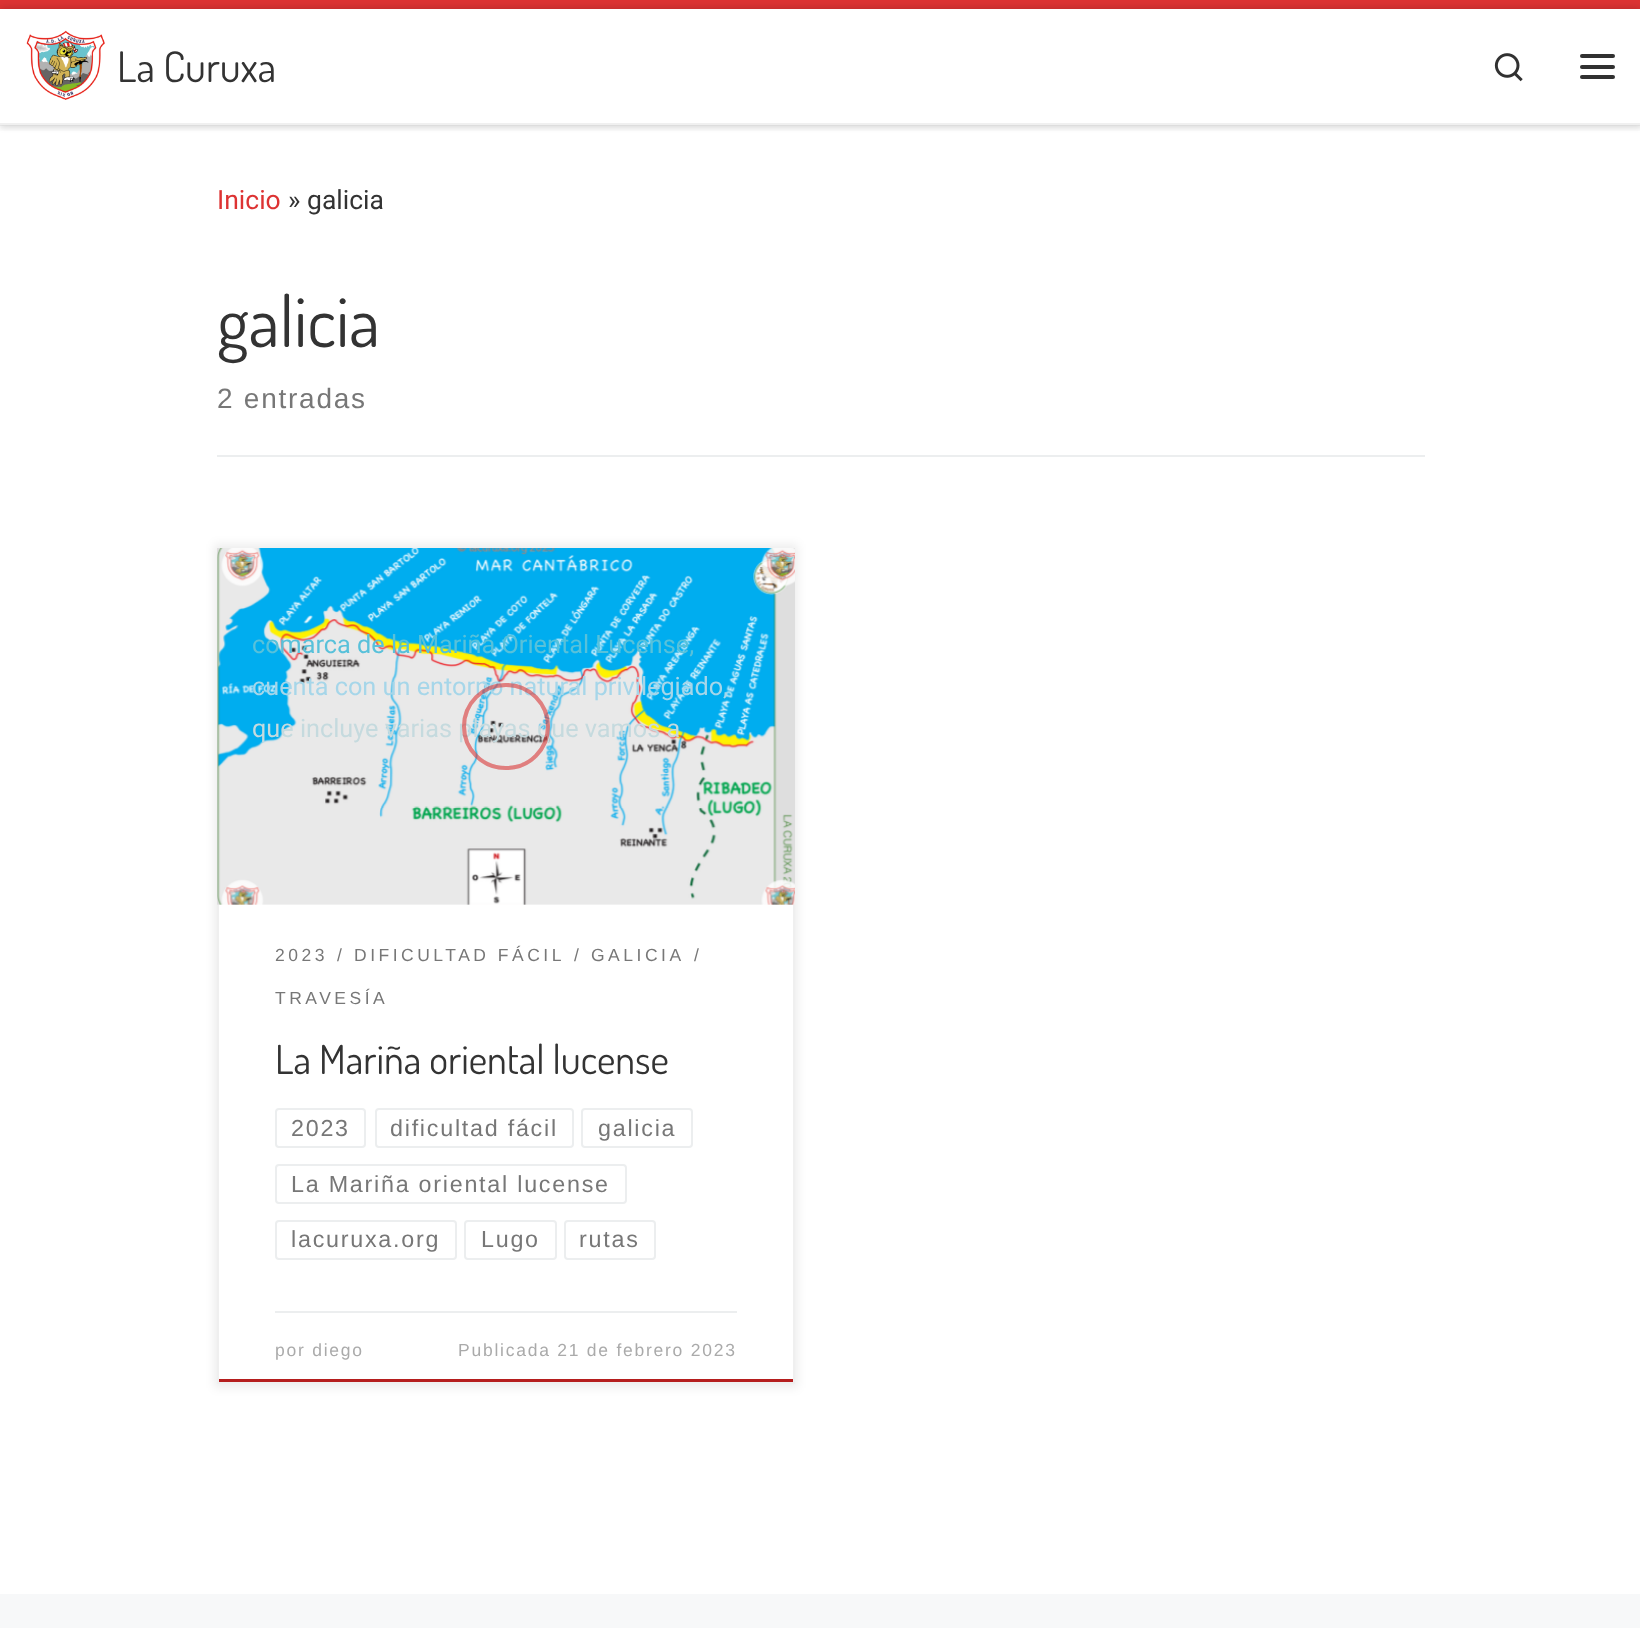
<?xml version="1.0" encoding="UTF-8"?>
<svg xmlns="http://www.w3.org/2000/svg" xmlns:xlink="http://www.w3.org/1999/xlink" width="1640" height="1628">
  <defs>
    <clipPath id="clip1"><rect x="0" y="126" width="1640" height="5" /></clipPath>
    <clipPath id="clip2"><path d="M 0 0 h 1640 v 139 h -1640 z m 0 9 h 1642 v 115 h -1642 z" clip-rule="evenodd" /></clipPath>
  </defs>
  <rect width="100%" height="100%" fill="#ffffff" />
  <g clip-path="url(#clip1)">
    <rect y="4" width="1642" height="126" fill="#666666" fill-opacity="0.08" filter="blur(2px)" />
  </g>
  <rect width="1640" height="9" fill="#dd3333" />
  <path d="M 0 124 v 2 h 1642 v -115 v 113 z" fill="#efefef" />
  <g clip-path="url(#clip2)">
    <rect y="9" width="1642" height="115" fill="#000000" fill-opacity="0.2" filter="blur(4.5px)" />
  </g>
  <image x="26" y="30" width="79" height="70" xlink:href="image1.png" />
  <image x="1494" y="53" width="29" height="29" xlink:href="image2.png" />
  <rect x="1580" y="54" width="35" height="4" rx="2" fill="#313131" />
  <rect x="1580" y="65" width="35" height="4" rx="2" fill="#313131" />
  <rect x="1580" y="75" width="35" height="4" rx="2" fill="#313131" />
  <rect y="123" width="1640" height="2" fill="#f0f0f0" />
  <rect x="217" y="455" width="1208" height="2" fill="#eceeef" />
  <rect x="214" y="544" width="584" height="844" fill="#000000" fill-opacity="0.07" filter="blur(5px)" />
  <rect x="219" y="904" width="574" height="475" fill="#ffffff" />
  <rect x="217" y="1379" width="578" height="3" fill="#b51e1e" />
  <rect x="276" y="1109" width="89" height="38" rx="3" fill="none" stroke="#eceeef" stroke-width="2" />
  <rect x="376" y="1109" width="197" height="38" rx="3" fill="none" stroke="#eceeef" stroke-width="2" />
  <rect x="582" y="1109" width="110" height="38" rx="3" fill="none" stroke="#eceeef" stroke-width="2" />
  <rect x="276" y="1165" width="350" height="38" rx="3" fill="none" stroke="#eceeef" stroke-width="2" />
  <rect x="276" y="1221" width="180" height="38" rx="3" fill="none" stroke="#eceeef" stroke-width="2" />
  <rect x="465" y="1221" width="91" height="38" rx="3" fill="none" stroke="#eceeef" stroke-width="2" />
  <rect x="565" y="1221" width="90" height="38" rx="3" fill="none" stroke="#eceeef" stroke-width="2" />
  <rect x="218" y="549" width="576" height="834" fill="none" stroke="#efefef" stroke-width="2" />
  <image x="217" y="548" width="578" height="357" xlink:href="image3.png" />
  <rect x="275" y="1311" width="462" height="2" fill="#eceeef" />
  <rect y="1594" width="1640" height="34" fill="#f7f8f9" />
  <text x="117" y="82" style="font-family: Dosis; font-size: 42px; fill: #333333">La Curuxa</text>
  <text x="217" y="209" style="font-family: Roboto; font-size: 26.5px; fill: #dd3333">Inicio</text>
  <text x="288" y="209" style="font-family: Roboto; font-size: 26.5px; fill: #333333">» galicia</text>
  <text x="217" y="347" style="font-family: Dosis; font-size: 70px; fill: #333333">galicia</text>
  <text x="217" y="408" style="font-family: Liberation Sans; font-size: 28px; letter-spacing: 1.75px; fill: #777777">2 entradas</text>
  <text x="252" y="653" style="font-family: Roboto; font-size: 25.25px; fill: #58c1da">comarca de la Mariña Oriental Lucense,</text>
  <text x="252" y="695" style="font-family: Roboto; font-size: 25.25px; fill: #a6d6e9">cuenta con un entorno natural privilegiado,</text>
  <text x="252" y="737" style="font-family: Roboto; font-size: 25.25px; fill: #c5dade">que incluye varias playas que vamos a</text>
  <rect x="464" y="685" width="84" height="83" rx="41.5" fill="none" stroke="#dd3333" stroke-opacity="0.25" stroke-width="4" />
  <rect x="464" y="685" width="84" height="83" rx="41.5" fill="none" stroke="#dd3333" stroke-opacity="0.25" stroke-width="4" />
  <rect x="464" y="685" width="84" height="83" rx="41.5" fill="none" stroke="#dd3333" stroke-opacity="0.25" stroke-width="4" />
  <text x="275" y="961" style="font-family: Liberation Sans; font-size: 17.5px; letter-spacing: 3.5px; fill: #777777">2023</text>
  <text x="337" y="961" style="font-family: Liberation Sans; font-size: 17.5px; letter-spacing: 3.5px; fill: #777777">/</text>
  <text x="354" y="961" style="font-family: Liberation Sans; font-size: 17.5px; letter-spacing: 3.5px; fill: #777777">DIFICULTAD FÁCIL</text>
  <text x="574" y="961" style="font-family: Liberation Sans; font-size: 17.5px; letter-spacing: 3.5px; fill: #777777">/</text>
  <text x="591" y="961" style="font-family: Liberation Sans; font-size: 17.5px; letter-spacing: 3.5px; fill: #777777">GALICIA</text>
  <text x="694" y="961" style="font-family: Liberation Sans; font-size: 17.5px; letter-spacing: 3.5px; fill: #777777">/</text>
  <text x="275" y="1004" style="font-family: Liberation Sans; font-size: 17.5px; letter-spacing: 3.5px; fill: #777777">TRAVESÍA</text>
  <text x="275" y="1074" style="font-family: Dosis; font-size: 40px; fill: #333333">La Mariña oriental lucense</text>
  <text x="291" y="1136" style="font-family: Liberation Sans; font-size: 23.3px; letter-spacing: 1.75px; fill: #777777">2023</text>
  <text x="390" y="1136" style="font-family: Liberation Sans; font-size: 23.3px; letter-spacing: 1.75px; fill: #777777">dificultad fácil</text>
  <text x="598" y="1136" style="font-family: Liberation Sans; font-size: 23.3px; letter-spacing: 1.75px; fill: #777777">galicia</text>
  <text x="291" y="1192" style="font-family: Liberation Sans; font-size: 23.3px; letter-spacing: 1.75px; fill: #777777">La Mariña oriental lucense</text>
  <text x="291" y="1247" style="font-family: Liberation Sans; font-size: 23.3px; letter-spacing: 1.75px; fill: #777777">lacuruxa.org</text>
  <text x="481" y="1247" style="font-family: Liberation Sans; font-size: 23.3px; letter-spacing: 1.75px; fill: #777777">Lugo</text>
  <text x="579" y="1247" style="font-family: Liberation Sans; font-size: 23.3px; letter-spacing: 1.75px; fill: #777777">rutas</text>
  <text x="275" y="1356" style="font-family: Liberation Sans; font-size: 17.5px; letter-spacing: 1.75px; fill: #aaaaaa">por diego</text>
  <text x="458" y="1356" style="font-family: Liberation Sans; font-size: 17.5px; letter-spacing: 1.75px; fill: #aaaaaa">Publicada 21 de febrero 2023</text>
</svg>
